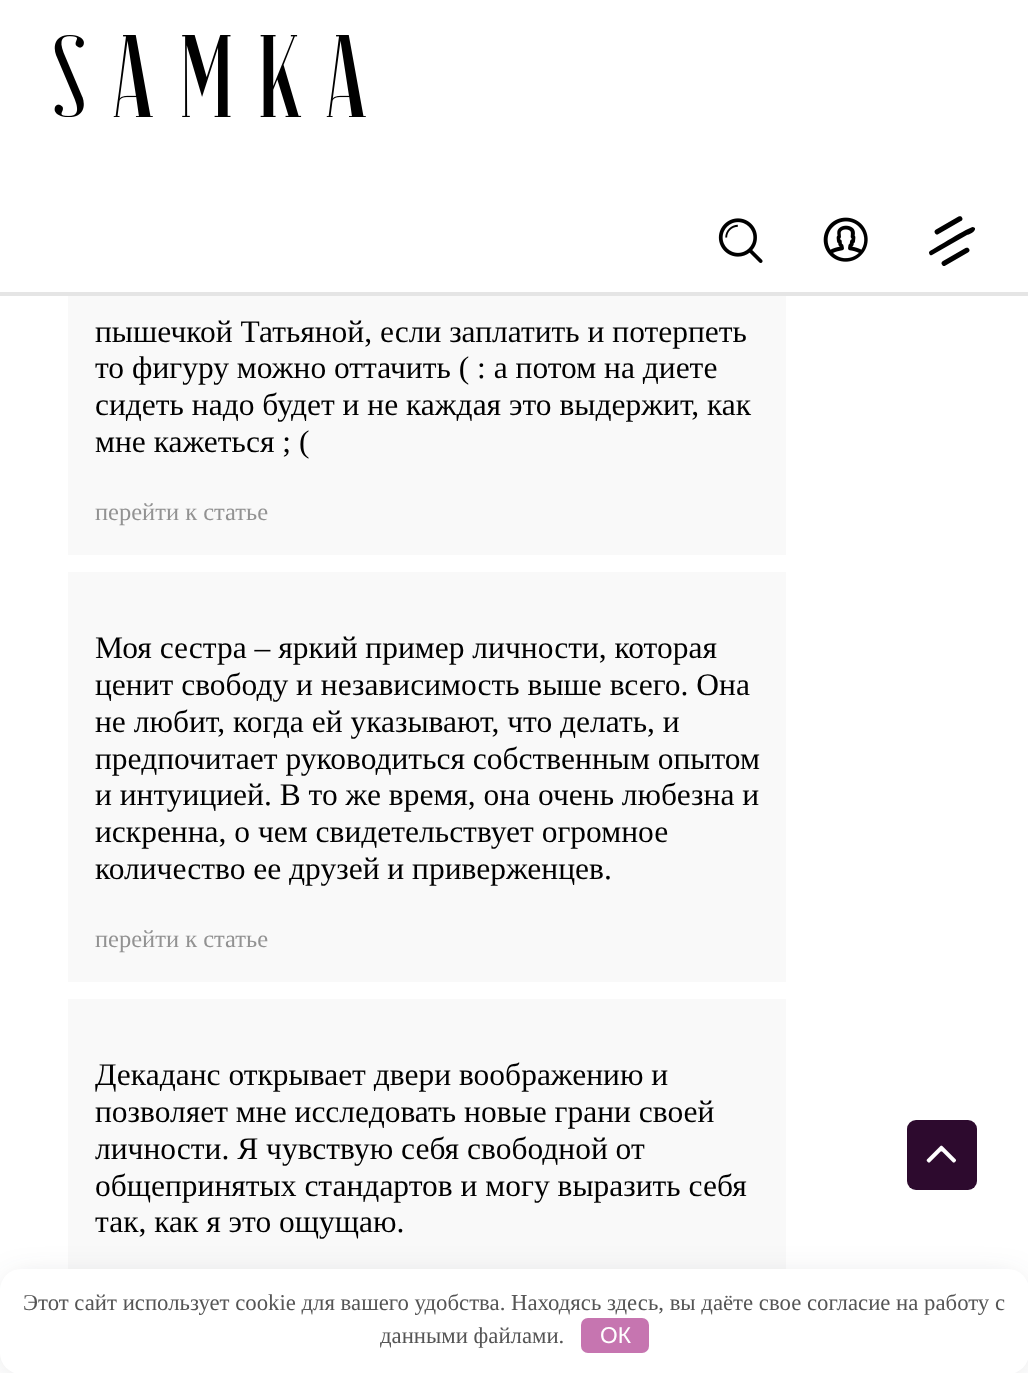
<?xml version="1.0" encoding="UTF-8"?>
<svg xmlns="http://www.w3.org/2000/svg" xmlns:xlink="http://www.w3.org/1999/xlink" width="1028" height="1373">
  <rect width="100%" height="100%" fill="#ffffff" />
  <rect y="292" width="1028" height="4" fill="#e5e5e5" />
  <image x="54" y="35" width="312" height="82" xlink:href="image1.png" />
  <image x="718" y="218" width="45" height="45" xlink:href="image2.png" />
  <image x="823" y="217" width="45" height="45" xlink:href="image3.png" />
  <path d="M 936 229.5 l 22.5 -13 c 1.5 -0.5 3 -0.5 3.5 1 c 1 1 0.5 3 -1 3.5 l -22.5 13 c -1.5 1 -3 0.5 -3.5 -1 c -1 -1 -0.5 -2.5 1 -3.5 z" fill="#000000" />
  <path d="M 930 251 c 5 -3 41 -25 43 -24 l 2 1 c 1 4 -7 7 -8 7 l -35 20 c -2 1 -3 -1 -3 -3 z" fill="#000000" />
  <path d="M 943 261 l 22.5 -13 c 1.5 -0.5 3 -0.5 3.5 1 c 1 1 0.5 3 -1 3.5 l -22.5 13 c -1.5 1 -3 0.5 -3.5 -1 c -1 -1 -0.5 -2.5 1 -3.5 z" fill="#000000" />
  <rect x="68" y="296" width="718" height="259" fill="#f9f9f9" />
  <rect x="68" y="572" width="718" height="410" fill="#f9f9f9" />
  <rect x="68" y="999" width="718" height="270" fill="#f9f9f9" />
  <rect x="907" y="1120" width="70" height="70" rx="9" fill="#2d0a2e" />
  <image x="926" y="1145" width="30" height="18" xlink:href="image4.png" />
  <rect x="9" y="1283" width="1011" height="87" rx="12" fill="#292c38" fill-opacity="0.2" filter="blur(17.5px)" />
  <rect y="1269" width="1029" height="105" rx="21" fill="#ffffff" />
  <rect x="581" y="1318" width="68" height="35" rx="7" fill="#c675b0" />
  <text x="95" y="342" style="font-family: Liberation Serif; font-size: 31.5px; fill: #000000">пышечкой Татьяной, если заплатить и потерпеть</text>
  <text x="95" y="378" style="font-family: Liberation Serif; font-size: 31.5px; fill: #000000">то фигуру можно оттачить ( : а потом на диете</text>
  <text x="95" y="415" style="font-family: Liberation Serif; font-size: 31.5px; fill: #000000">сидеть надо будет и не каждая это выдержит, как</text>
  <text x="95" y="452" style="font-family: Liberation Serif; font-size: 31.5px; fill: #000000">мне кажеться ; (</text>
  <text x="95" y="520" style="font-family: Liberation Serif; font-size: 24.5px; fill: #929292">перейти к статье</text>
  <text x="95" y="658" style="font-family: Liberation Serif; font-size: 31.5px; fill: #000000">Моя сестра – яркий пример личности, которая</text>
  <text x="95" y="695" style="font-family: Liberation Serif; font-size: 31.5px; fill: #000000">ценит свободу и независимость выше всего. Она</text>
  <text x="95" y="732" style="font-family: Liberation Serif; font-size: 31.5px; fill: #000000">не любит, когда ей указывают, что делать, и</text>
  <text x="95" y="769" style="font-family: Liberation Serif; font-size: 31.5px; fill: #000000">предпочитает руководиться собственным опытом</text>
  <text x="95" y="805" style="font-family: Liberation Serif; font-size: 31.5px; fill: #000000">и интуицией. В то же время, она очень любезна и</text>
  <text x="95" y="842" style="font-family: Liberation Serif; font-size: 31.5px; fill: #000000">искренна, о чем свидетельствует огромное</text>
  <text x="95" y="879" style="font-family: Liberation Serif; font-size: 31.5px; fill: #000000">количество ее друзей и приверженцев.</text>
  <text x="95" y="947" style="font-family: Liberation Serif; font-size: 24.5px; fill: #929292">перейти к статье</text>
  <text x="95" y="1085" style="font-family: Liberation Serif; font-size: 31.5px; fill: #000000">Декаданс открывает двери воображению и</text>
  <text x="95" y="1122" style="font-family: Liberation Serif; font-size: 31.5px; fill: #000000">позволяет мне исследовать новые грани своей</text>
  <text x="95" y="1159" style="font-family: Liberation Serif; font-size: 31.5px; fill: #000000">личности. Я чувствую себя свободной от</text>
  <text x="95" y="1196" style="font-family: Liberation Serif; font-size: 31.5px; fill: #000000">общепринятых стандартов и могу выразить себя</text>
  <text x="95" y="1232" style="font-family: Liberation Serif; font-size: 31.5px; fill: #000000">так, как я это ощущаю.</text>
  <text x="23" y="1310" style="font-family: Liberation Serif; font-size: 22.75px; fill: #555555">Этот сайт использует cookie для вашего удобства. Находясь здесь, вы даёте свое согласие на работу с</text>
  <text x="380" y="1343" style="font-family: Liberation Serif; font-size: 22.75px; fill: #555555">данными файлами.</text>
  <text x="600" y="1343" style="font-family: Liberation Sans; font-size: 22.75px; fill: #ffffff">ОК</text>
</svg>
